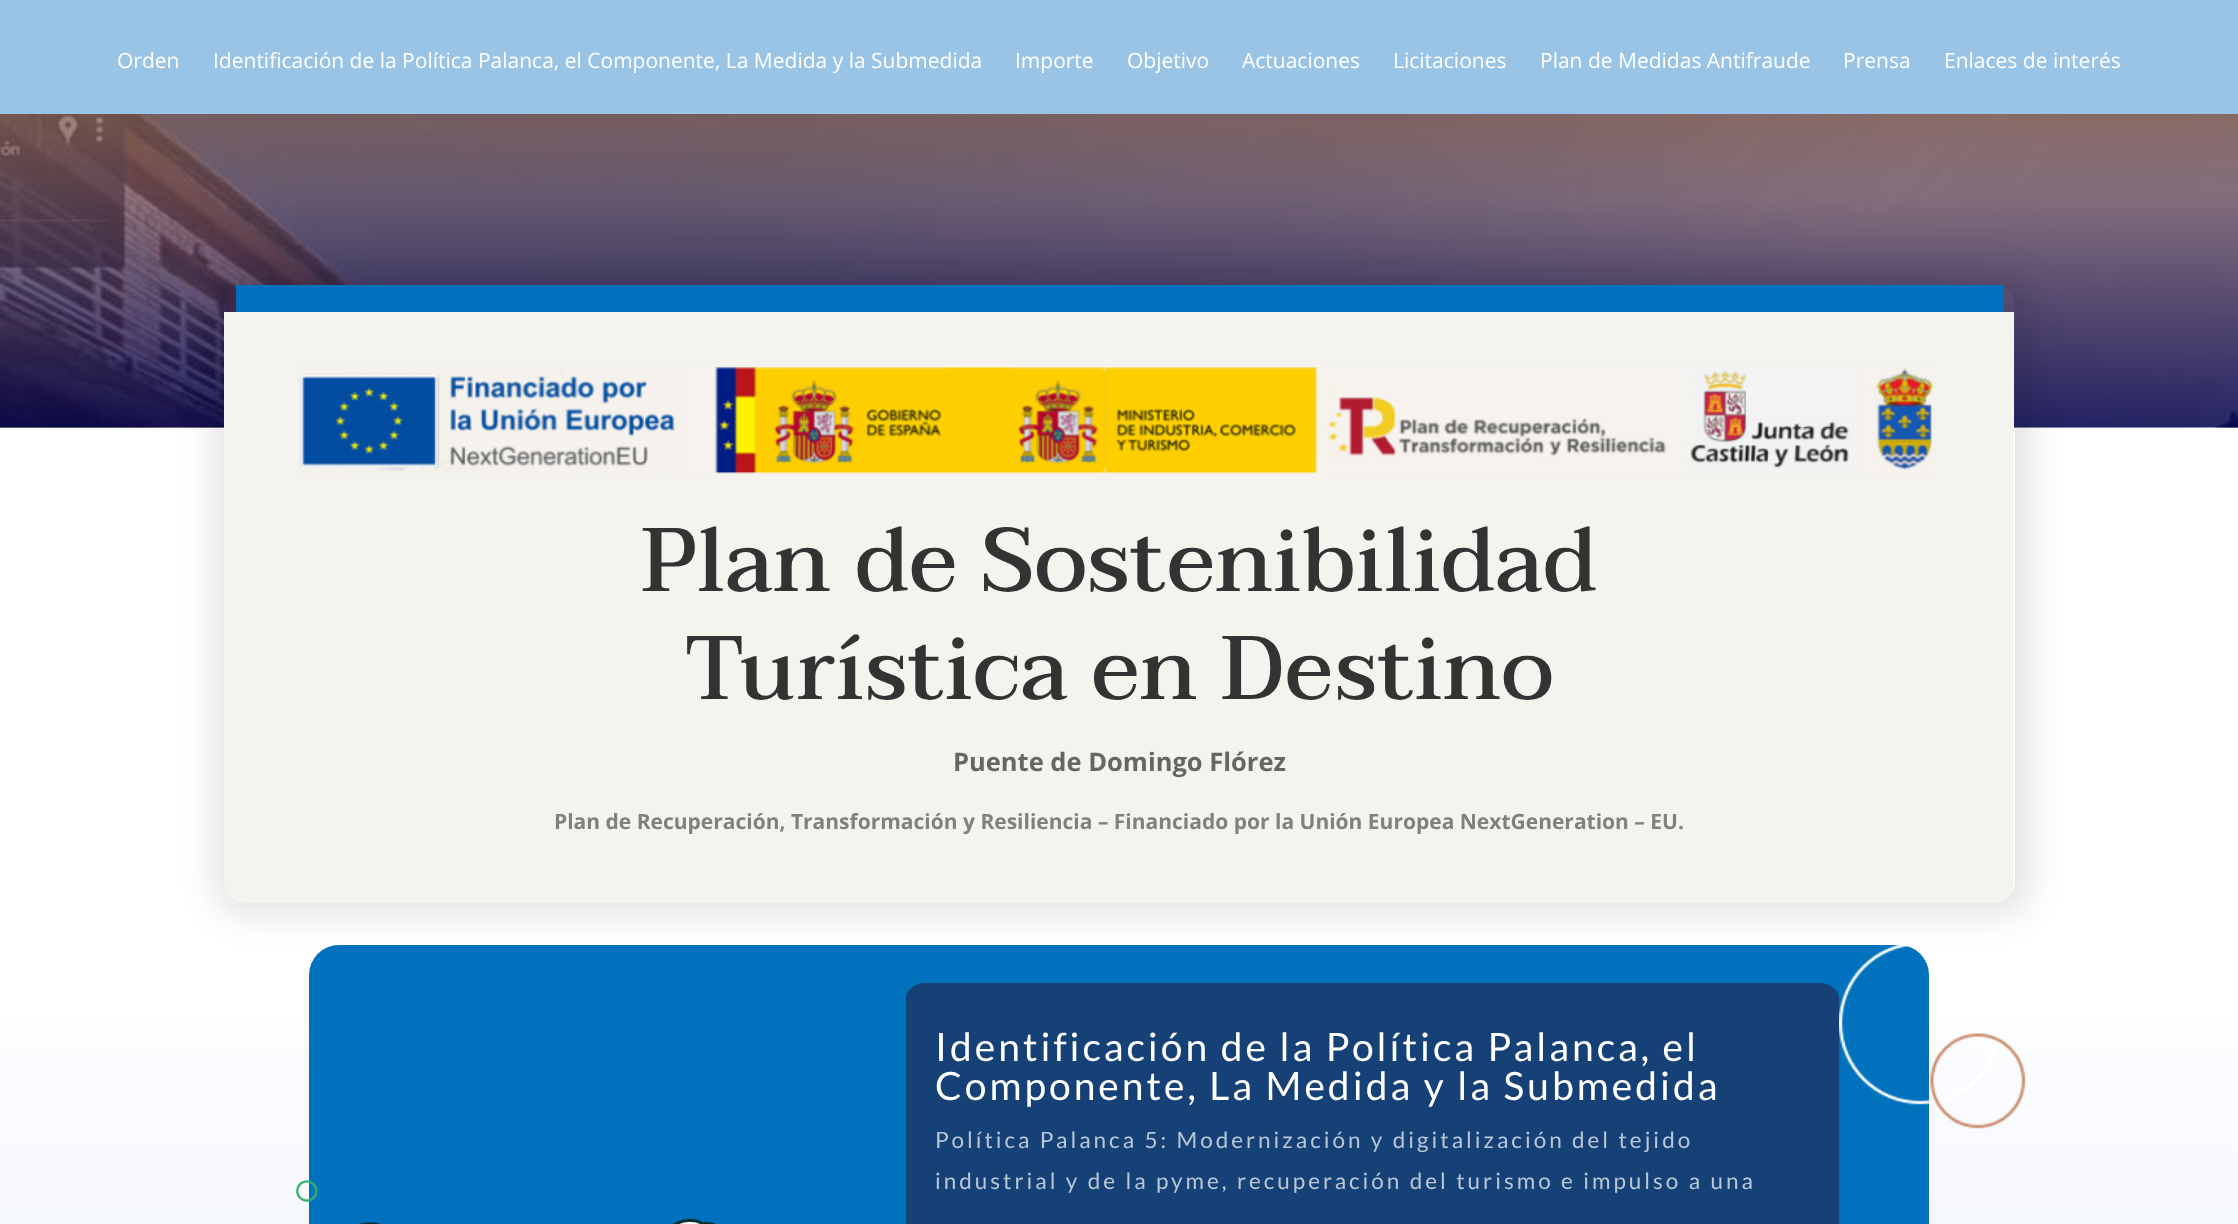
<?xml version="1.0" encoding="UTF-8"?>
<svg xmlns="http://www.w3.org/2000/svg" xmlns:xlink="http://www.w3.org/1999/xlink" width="2238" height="1224">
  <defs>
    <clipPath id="clip1"><path d="M 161 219 h 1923 v 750 h -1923 z m 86 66 h 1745 c 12.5 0 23 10.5 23 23 v 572 c 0 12.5 -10.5 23 -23 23 h -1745 c -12.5 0 -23 -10.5 -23 -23 v -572 c 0 -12.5 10.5 -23 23 -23 z" clip-rule="evenodd" /></clipPath>
    <linearGradient id="g1" gradientUnits="userSpaceOnUse" x1="1119" y1="945" x2="1119" y2="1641"><stop offset="0" stop-color="#ffffff" /><stop offset="1" stop-color="#e8eefc" /></linearGradient>
  </defs>
  <rect width="100%" height="100%" fill="#ffffff" />
  <rect width="2238" height="114" fill="#99c4e6" />
  <image x="0" y="114" width="2238" height="314" xlink:href="image1.png" />
  <g clip-path="url(#clip1)">
    <rect x="212" y="270" width="1821" height="648" rx="38" fill="#000000" fill-opacity="0.1" filter="blur(16.5px)" />
  </g>
  <path d="M 246 312 h 1768 v 568 c 0 13 -10 23 -22 23 h -1746 c -12 0 -22 -10 -22 -23 v -568 z" fill="#f5f3ee" />
  <rect x="236" y="285" width="1768" height="27" fill="#0071bc" />
  <image x="299" y="367" width="1637" height="107" xlink:href="image2.png" />
  <rect y="1021" width="2238" height="203" fill="url(#g1)" />
  <rect x="309" y="945" width="1620" height="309" rx="30" fill="#0071bc" />
  <path d="M 930 982 h 885 c 13 0 24 7 24 16 v 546 c 0 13 -11 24 -24 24 h -885 c -13 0 -24 -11 -24 -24 v -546 c 0 -9 11 -16 24 -16 z" fill="#164177" />
  <rect x="922" y="982" width="901" height="1" fill="#0071bc" />
  <image x="1839" y="945" width="187" height="184" xlink:href="image3.png" />
  <image x="296" y="1180" width="420" height="44" xlink:href="image4.png" />
  <text x="117" y="68" style="font-family: Open Sans; font-size: 21px; fill: #ffffff">Orden</text>
  <text x="213" y="68" style="font-family: Open Sans; font-size: 21px; fill: #ffffff">Identificación de la Política Palanca, el Componente, La Medida y la Submedida</text>
  <text x="1015" y="68" style="font-family: Open Sans; font-size: 21px; fill: #ffffff">Importe</text>
  <text x="1127" y="68" style="font-family: Open Sans; font-size: 21px; fill: #ffffff">Objetivo</text>
  <text x="1242" y="68" style="font-family: Open Sans; font-size: 21px; fill: #ffffff">Actuaciones</text>
  <text x="1393" y="68" style="font-family: Open Sans; font-size: 21px; fill: #ffffff">Licitaciones</text>
  <text x="1540" y="68" style="font-family: Open Sans; font-size: 21px; fill: #ffffff">Plan de Medidas Antifraude</text>
  <text x="1843" y="68" style="font-family: Open Sans; font-size: 21px; fill: #ffffff">Prensa</text>
  <text x="1944" y="68" style="font-family: Open Sans; font-size: 21px; fill: #ffffff">Enlaces de interés</text>
  <text x="641" y="591" style="font-family: Taviraj; font-size: 90px; font-weight: 500; fill: #333333">Plan de Sostenibilidad</text>
  <text x="684" y="699" style="font-family: Taviraj; font-size: 90px; font-weight: 500; fill: #333333">Turística en Destino</text>
  <text x="953" y="771" style="font-family: Open Sans; font-size: 25.5px; font-weight: bold; fill: #666666">Puente de Domingo Flórez</text>
  <text x="554" y="829" style="font-family: Open Sans; font-size: 21px; font-weight: bold; fill: #808080">Plan de Recuperación, Transformación y Resiliencia – Financiado por la Unión Europea NextGeneration – EU.</text>
  <text x="935" y="1061" style="font-family: Lato; font-size: 39px; letter-spacing: 3px; fill: #ffffff">Identificación de la Política Palanca, el</text>
  <text x="935" y="1100" style="font-family: Lato; font-size: 39px; letter-spacing: 3px; fill: #ffffff">Componente, La Medida y la Submedida</text>
  <text x="935" y="1148" style="font-family: Lato; font-size: 22.5px; letter-spacing: 3px; fill: #b9c6d6">Política Palanca 5: Modernización y digitalización del tejido</text>
  <text x="935" y="1189" style="font-family: Lato; font-size: 22.5px; letter-spacing: 3px; fill: #b9c6d6">industrial y de la pyme, recuperación del turismo e impulso a una</text>
</svg>
